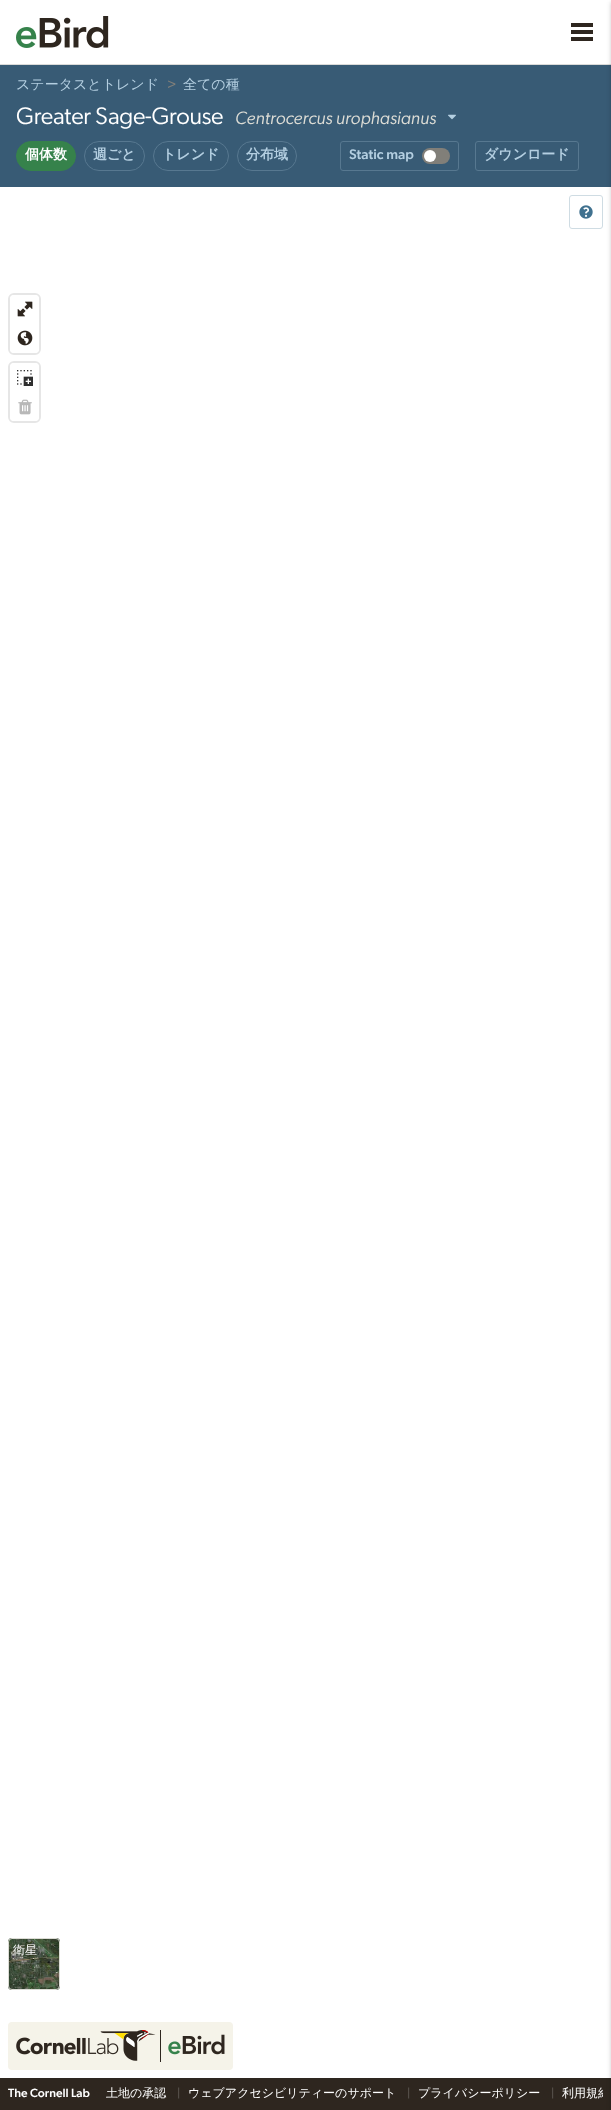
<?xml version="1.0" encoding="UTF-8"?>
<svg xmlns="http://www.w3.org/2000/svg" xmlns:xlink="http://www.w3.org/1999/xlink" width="611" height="2110">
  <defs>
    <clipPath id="clip1"><rect x="8" y="2086" width="595" height="16" /></clipPath>
  </defs>
  <rect width="100%" height="100%" fill="#ffffff" />
  <rect y="64" width="611" height="1" fill="#dbdbd9" />
  <image x="16" y="16" width="93" height="32" xlink:href="image1.png" />
  <image x="571" y="23" width="22" height="18" xlink:href="image2.png" />
  <rect y="65" width="611" height="122" fill="#385b75" />
  <rect y="2078" width="611" height="32" fill="#2e261f" />
  <rect x="611" y="2" width="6" height="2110" fill="#000000" fill-opacity="0.2" filter="blur(2px)" />
  <image x="448" y="114" width="8" height="6" xlink:href="image3.png" />
  <rect x="16.5" y="141.5" width="59" height="29" rx="14.5" fill="#36824b" stroke="#36824b" />
  <rect x="84.5" y="141.5" width="60" height="29" rx="14.5" fill="none" stroke="#577890" />
  <rect x="153.5" y="141.5" width="75" height="29" rx="14.5" fill="none" stroke="#577890" />
  <rect x="237.5" y="141.5" width="59" height="29" rx="14.5" fill="none" stroke="#577890" />
  <rect x="340.5" y="141.5" width="118" height="29" rx="2.5" fill="none" stroke="#577890" />
  <rect x="422" y="148" width="28" height="16" rx="8" fill="#817f79" />
  <circle cx="430" cy="156" r="6" fill="#ffffff" />
  <rect x="475.5" y="141.5" width="103" height="29" rx="2.5" fill="none" stroke="#577890" />
  <rect x="569.5" y="195.5" width="33" height="33" rx="2.5" fill="none" stroke="#cfdce3" />
  <image x="579" y="205" width="14" height="14" xlink:href="image4.png" />
  <rect x="9" y="294" width="31" height="60" rx="5" fill="none" stroke="#e6e6e6" stroke-width="2" />
  <rect x="10" y="295" width="29" height="58" rx="4" fill="#ffffff" />
  <image x="17" y="301" width="16" height="16" xlink:href="image5.png" />
  <image x="17" y="330" width="16" height="16" xlink:href="image6.png" />
  <rect x="9" y="362" width="31" height="60" rx="5" fill="none" stroke="#e6e6e6" stroke-width="2" />
  <rect x="10" y="363" width="29" height="58" rx="4" fill="#ffffff" />
  <image x="17" y="370" width="16" height="16" xlink:href="image7.png" />
  <image x="18" y="399" width="14" height="16" xlink:href="image8.png" />
  <image x="8" y="1938" width="52" height="52" xlink:href="image9.png" />
  <rect x="8.5" y="1938.5" width="51" height="51" rx="3.5" fill="none" stroke="#dcdcd5" />
  <rect x="8" y="2022" width="225" height="48" rx="4" fill="#f5f3e9" />
  <image x="16" y="2030" width="209" height="32" xlink:href="image10.png" />
  <text x="16" y="89" style="font-family: WenQuanYi Zen Hei; font-size: 14px; font-weight: 500; fill: #b4cfe1">ステータスとトレンド</text>
  <text x="167" y="89" style="font-family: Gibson; font-size: 14px; fill: #817f79">&gt;</text>
  <text x="183" y="89" style="font-family: WenQuanYi Zen Hei; font-size: 14px; font-weight: 500; fill: #b4cfe1">全ての種</text>
  <text x="16" y="124" style="font-family: 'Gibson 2'; font-size: 24px; letter-spacing: -0.3px; fill: #ffffff">Greater Sage-Grouse</text>
  <text x="235" y="124" style="font-family: Gibson; font-size: 18px; font-style: italic; fill: #dcdcd5">Centrocercus urophasianus</text>
  <text x="25" y="159" style="font-family: WenQuanYi Zen Hei; font-size: 14px; font-weight: bold; fill: #ffffff">個体数</text>
  <text x="93" y="159" style="font-family: WenQuanYi Zen Hei; font-size: 14px; font-weight: bold; fill: #b4cfe1">週ごと</text>
  <text x="162" y="159" style="font-family: WenQuanYi Zen Hei; font-size: 14px; font-weight: bold; fill: #b4cfe1">トレンド</text>
  <text x="246" y="159" style="font-family: WenQuanYi Zen Hei; font-size: 14px; font-weight: bold; fill: #b4cfe1">分布域</text>
  <text x="349" y="159" style="font-family: Gibson; font-size: 14px; font-weight: 500; fill: #b4cfe1">Static map</text>
  <text x="484" y="159" style="font-family: WenQuanYi Zen Hei; font-size: 14px; font-weight: bold; fill: #b4cfe1">ダウンロード</text>
  <text x="13" y="1954" style="font-family: WenQuanYi Zen Hei; font-size: 12px; font-weight: 500; fill: #ffffff">衛星</text>
  <text x="8" y="2097" style="font-family: Gibson; font-size: 12px; font-weight: 500; fill: #ffffff">The Cornell Lab</text>
  <text x="106" y="2097" style="font-family: WenQuanYi Zen Hei; font-size: 12px; font-weight: 500; fill: #ffffff">土地の承認</text>
  <text x="177" y="2097" style="font-family: Gibson; font-size: 12px; fill: #625c57">|</text>
  <text x="188" y="2097" style="font-family: WenQuanYi Zen Hei; font-size: 12px; font-weight: 500; fill: #ffffff">ウェブアクセシビリティーのサポート</text>
  <text x="407" y="2097" style="font-family: Gibson; font-size: 12px; fill: #625c57">|</text>
  <text x="418" y="2097" style="font-family: WenQuanYi Zen Hei; font-size: 12px; font-weight: 500; fill: #ffffff">プライバシーポリシー</text>
  <text x="551" y="2097" style="font-family: Gibson; font-size: 12px; fill: #625c57">|</text>
  <g clip-path="url(#clip1)">
    <text x="562" y="2097" style="font-family: WenQuanYi Zen Hei; font-size: 12px; font-weight: 500; fill: #ffffff">利用規約</text>
  </g>
</svg>
